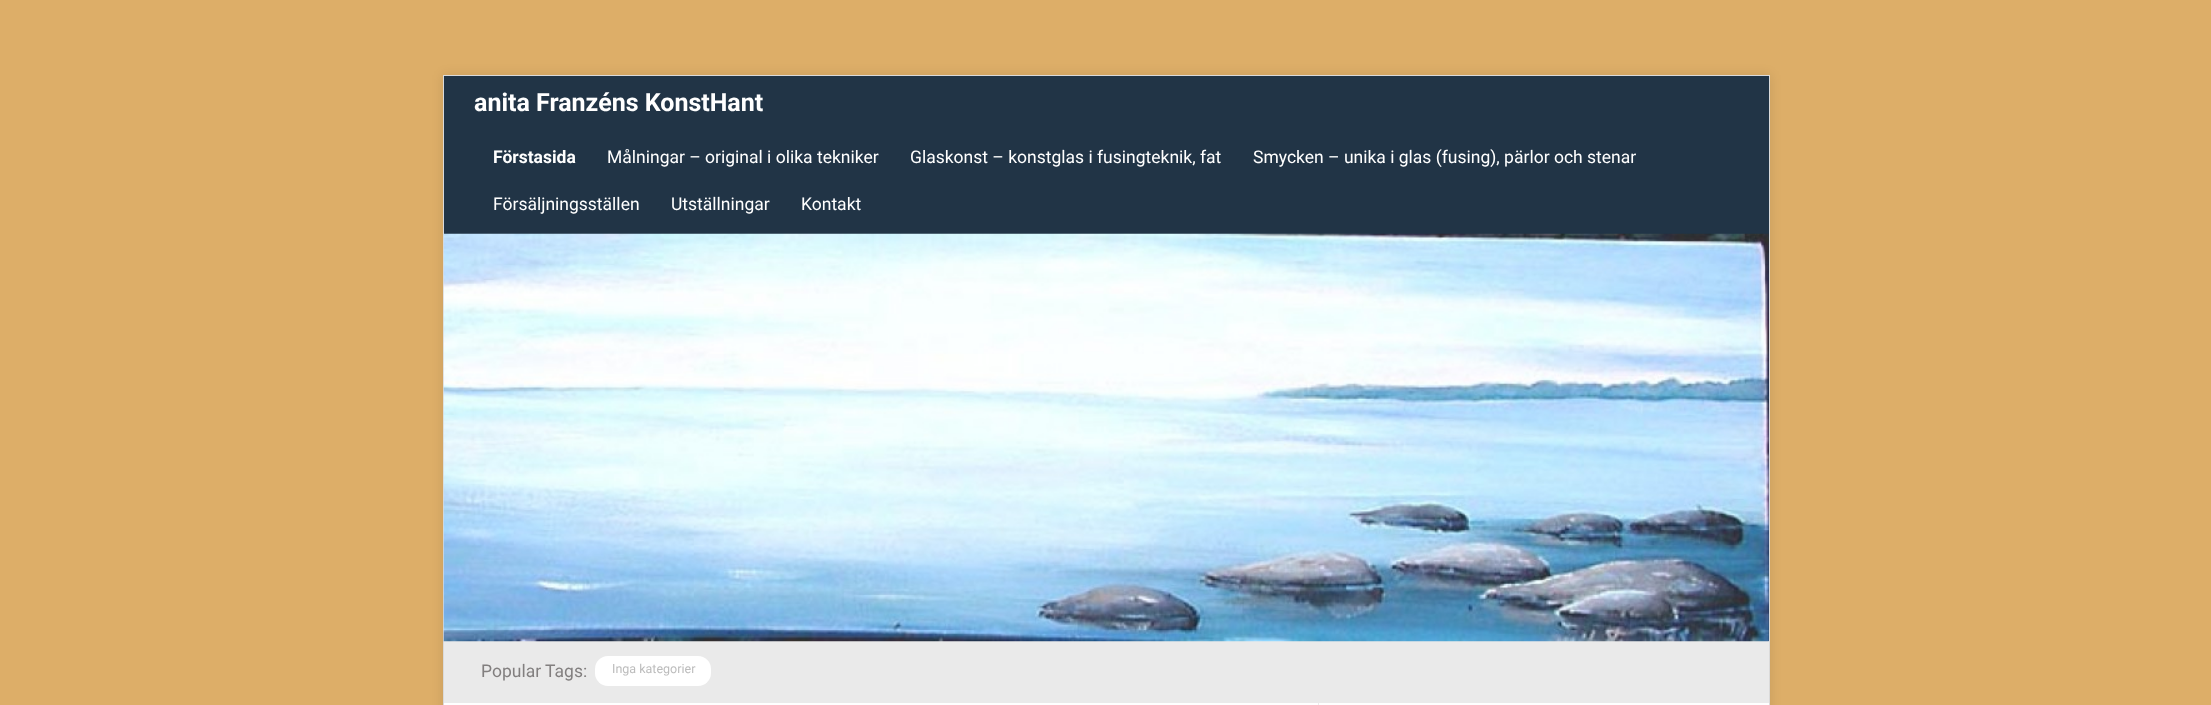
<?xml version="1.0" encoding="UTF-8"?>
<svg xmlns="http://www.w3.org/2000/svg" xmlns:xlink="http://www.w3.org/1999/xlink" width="2211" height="705">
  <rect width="100%" height="100%" fill="#ddae68" />
  <rect x="443" y="75" width="1327" height="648" fill="#000000" fill-opacity="0.1" filter="blur(6px)" />
  <rect x="444" y="703" width="1325" height="2" fill="#ffffff" />
  <rect x="443.5" y="75.5" width="1326" height="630" fill="none" stroke="#dadada" />
  <rect x="444" y="76" width="1325" height="565" fill="#213446" />
  <rect x="444" y="641" width="1325" height="62" fill="#eaeaea" />
  <image x="443" y="233" width="1326" height="409" xlink:href="image1.png" />
  <rect x="595" y="656" width="116" height="30" rx="13" fill="#ffffff" />
  <rect x="1318" y="703" width="1" height="2" fill="#ebebeb" />
  <text x="474" y="111" style="font-family: Roboto; font-size: 25px; font-weight: bold; fill: #ffffff">anita Franzéns KonstHant</text>
  <text x="493" y="163" style="font-family: Roboto; font-size: 17.5px; font-weight: bold; fill: #ffffff">Förstasida</text>
  <text x="607" y="163" style="font-family: Roboto; font-size: 17.5px; fill: #ffffff">Målningar – original i olika tekniker</text>
  <text x="910" y="163" style="font-family: Roboto; font-size: 17.5px; fill: #ffffff">Glaskonst – konstglas i fusingteknik, fat</text>
  <text x="1253" y="163" style="font-family: Roboto; font-size: 17.5px; fill: #ffffff">Smycken – unika i glas (fusing), pärlor och stenar</text>
  <text x="493" y="210" style="font-family: Roboto; font-size: 17.5px; fill: #ffffff">Försäljningsställen</text>
  <text x="671" y="210" style="font-family: Roboto; font-size: 17.5px; fill: #ffffff">Utställningar</text>
  <text x="801" y="210" style="font-family: Roboto; font-size: 17.5px; fill: #ffffff">Kontakt</text>
  <text x="481" y="677" style="font-family: Roboto; font-size: 17.5px; fill: #827f7f">Popular Tags:</text>
  <text x="612" y="673" style="font-family: Roboto; font-size: 12.5px; fill: #bcbcbc">Inga kategorier</text>
</svg>
